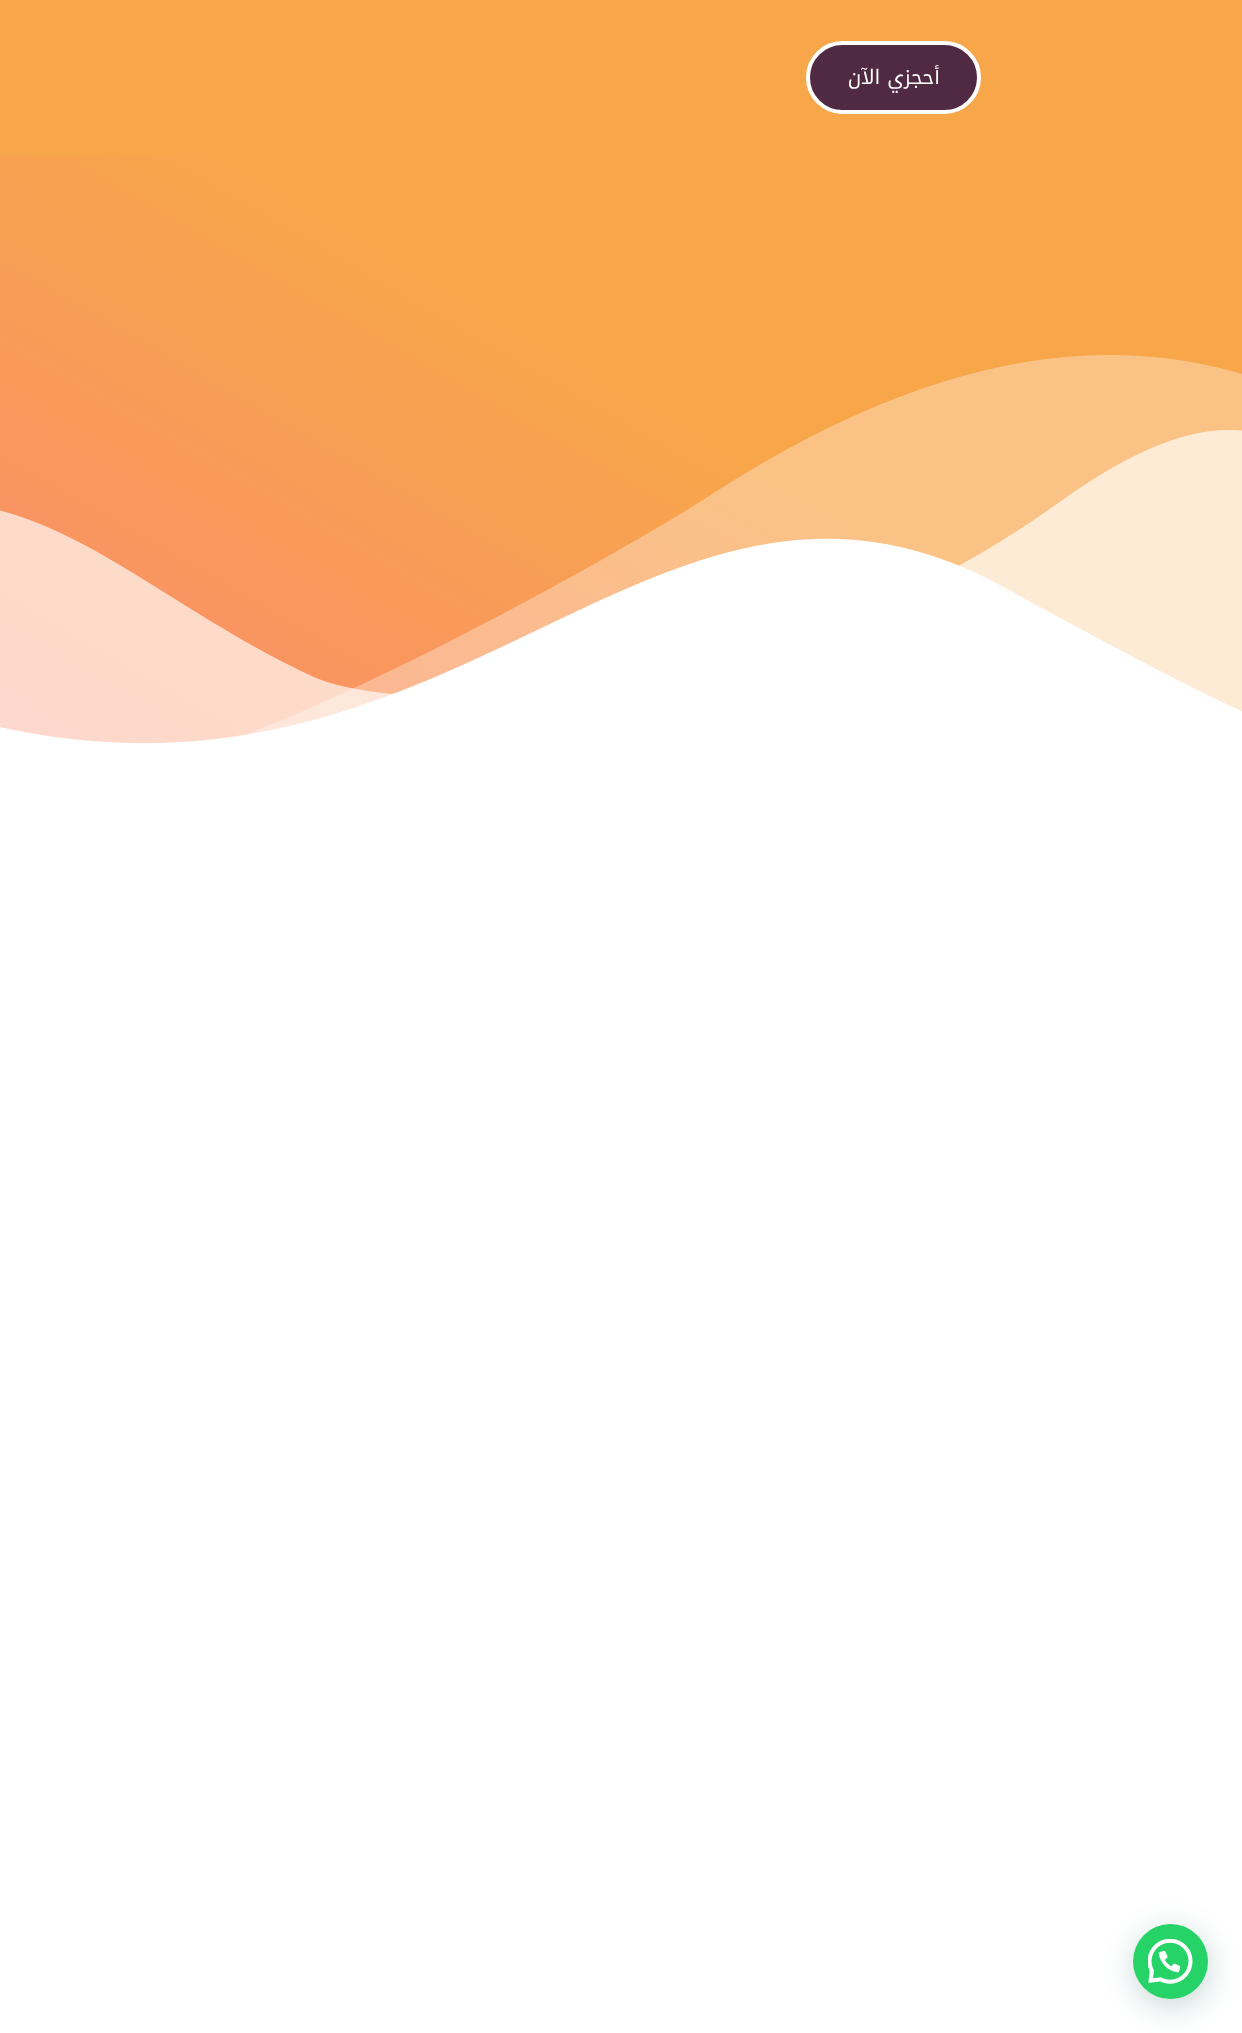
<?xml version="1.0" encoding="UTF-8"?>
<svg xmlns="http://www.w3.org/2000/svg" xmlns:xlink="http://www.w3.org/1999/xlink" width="1242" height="2033">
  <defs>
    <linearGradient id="g1" gradientUnits="userSpaceOnUse" x1="296" y1="972" x2="946" y2="-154"><stop offset="0" stop-color="#fa8a6e" /><stop offset="0.52" stop-color="#f8a64a" /></linearGradient>
  </defs>
  <rect width="100%" height="100%" fill="#ffffff" />
  <rect width="1242" height="155" fill="#f8a64a" />
  <rect x="808" y="43" width="171" height="69" rx="34.5" fill="#502942" stroke="#ffffff" stroke-width="4" />
  <rect y="155" width="1242" height="589" fill="url(#g1)" />
  <image x="0" y="355" width="1242" height="446" xlink:href="image1.png" />
  <rect x="1134" y="1931" width="75" height="75" rx="37.5" fill="#075e54" fill-opacity="0.24" filter="blur(15px)" />
  <circle cx="1170.5" cy="1961.5" r="37.5" fill="#25d366" />
  <image x="1148" y="1939" width="45" height="45" xlink:href="image2.png" />
  <text x="940" y="84" style="font-family: Noto Kufi Arabic; font-size: 20px; direction: rtl; fill: #ffffff">أحجزي الآن</text>
</svg>
